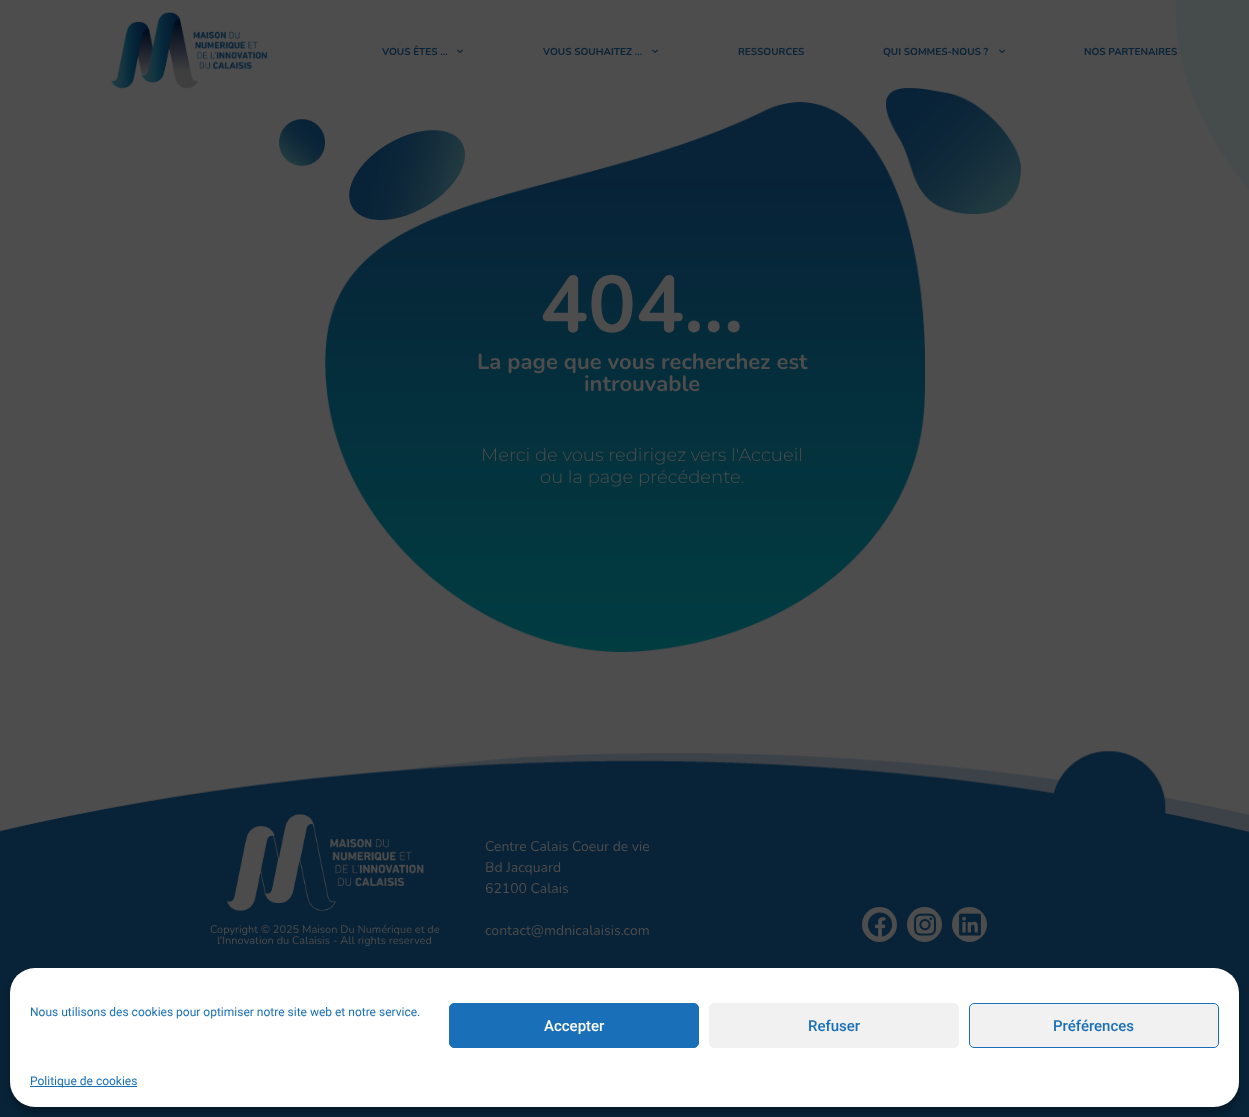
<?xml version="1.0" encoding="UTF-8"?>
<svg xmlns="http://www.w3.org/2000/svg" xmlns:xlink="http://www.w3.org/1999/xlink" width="1249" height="1117">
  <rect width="100%" height="100%" fill="#4d4d4d" />
  <image x="111" y="12" width="157" height="77" xlink:href="image1.png" />
  <image x="457" y="49" width="6" height="5" xlink:href="image2.png" />
  <image x="652" y="49" width="6" height="5" xlink:href="image2.png" />
  <image x="999" y="49" width="6" height="5" xlink:href="image2.png" />
  <image x="1175" y="0" width="74" height="190" xlink:href="image3.png" />
  <image x="279" y="119" width="46" height="47" xlink:href="image4.png" />
  <image x="325" y="102" width="600" height="550" xlink:href="image7.png" />
  <image x="349" y="130" width="116" height="90" xlink:href="image5.png" />
  <image x="886" y="88" width="135" height="126" xlink:href="image6.png" />
  <image x="0" y="751" width="1249" height="366" xlink:href="image8.png" />
  <image x="226" y="814" width="198" height="97" xlink:href="image9.png" />
  <circle cx="879.5" cy="924.5" r="17.5" fill="#4d4d4d" />
  <image x="867" y="912" width="26" height="25" xlink:href="image10.png" />
  <circle cx="924.5" cy="924.5" r="17.5" fill="#4d4d4d" />
  <image x="914" y="913" width="22" height="23" xlink:href="image11.png" />
  <circle cx="969.5" cy="924.5" r="17.5" fill="#4d4d4d" />
  <image x="959" y="913" width="22" height="23" xlink:href="image12.png" />
  <rect x="10" y="974" width="1229" height="139" rx="25" fill="#000000" fill-opacity="0.23" filter="blur(3px)" />
  <rect x="10" y="968" width="1229" height="139" rx="25" fill="#ffffff" />
  <rect x="449.5" y="1003.5" width="249" height="44" rx="4.5" fill="#1a70b8" stroke="#1a70b8" />
  <rect x="709.5" y="1003.5" width="249" height="44" rx="4.5" fill="#f1f1f1" stroke="#f1f1f1" />
  <rect x="969.5" y="1003.5" width="249" height="44" rx="4.5" fill="#f1f1f1" stroke="#1a70b8" />
  <rect x="30" y="1086" width="107" height="1" fill="#1a70b8" />
  <text x="382" y="55" style="font-family: Nunito; font-size: 10px; font-weight: bold; fill: #082237">VOUS ÊTES …</text>
  <text x="543" y="55" style="font-family: Nunito; font-size: 10px; font-weight: bold; fill: #082237">VOUS SOUHAITEZ …</text>
  <text x="738" y="55" style="font-family: Nunito; font-size: 10px; font-weight: bold; fill: #082237">RESSOURCES</text>
  <text x="883" y="55" style="font-family: Nunito; font-size: 10px; font-weight: bold; fill: #082237">QUI SOMMES-NOUS ?</text>
  <text x="1084" y="55" style="font-family: Nunito; font-size: 10px; font-weight: bold; fill: #082237">NOS PARTENAIRES</text>
  <text x="540" y="332" style="font-family: Nunito; font-size: 80px; font-weight: bold; fill: #4d4d4d">404...</text>
  <text x="477" y="369" style="font-family: Nunito; font-size: 22px; font-weight: bold; fill: #4d4d4d">La page que vous recherchez est</text>
  <text x="584" y="391" style="font-family: Nunito; font-size: 22px; font-weight: bold; fill: #4d4d4d">introuvable</text>
  <text x="481" y="461" style="font-family: Montserrat; font-size: 18px; font-weight: 300; fill: #4d4d4d">Merci de vous redirigez vers l'Accueil</text>
  <text x="540" y="483" style="font-family: Montserrat; font-size: 18px; font-weight: 300; fill: #4d4d4d">ou la page précédente.</text>
  <text x="210" y="933" style="font-family: Nunito; font-size: 11px; fill: #4d4d4d">Copyright © 2025 Maison Du Numérique et de</text>
  <text x="217" y="944" style="font-family: Nunito; font-size: 11px; fill: #4d4d4d">l'Innovation du Calaisis - All rights reserved</text>
  <text x="485" y="851" style="font-family: Nunito; font-size: 14px; fill: #4d4d4d">Centre Calais Coeur de vie</text>
  <text x="485" y="872" style="font-family: Nunito; font-size: 14px; fill: #4d4d4d">Bd Jacquard</text>
  <text x="485" y="893" style="font-family: Nunito; font-size: 14px; fill: #4d4d4d">62100 Calais</text>
  <text x="485" y="935" style="font-family: Nunito; font-size: 14px; fill: #4d4d4d">contact@mdnicalaisis.com</text>
  <text x="30" y="1016" style="font-family: Roboto; font-size: 12px; fill: #1a70b8">Nous utilisons des cookies pour optimiser notre site web et notre service.</text>
  <text x="544" y="1031" style="font-family: Roboto; font-size: 15px; font-weight: 500; fill: #ffffff">Accepter</text>
  <text x="808" y="1031" style="font-family: Roboto; font-size: 15px; font-weight: 500; fill: #1a70b8">Refuser</text>
  <text x="1053" y="1031" style="font-family: Roboto; font-size: 15px; font-weight: 500; fill: #1a70b8">Préférences</text>
  <text x="30" y="1085" style="font-family: Roboto; font-size: 12px; fill: #1a70b8">Politique de cookies</text>
</svg>
